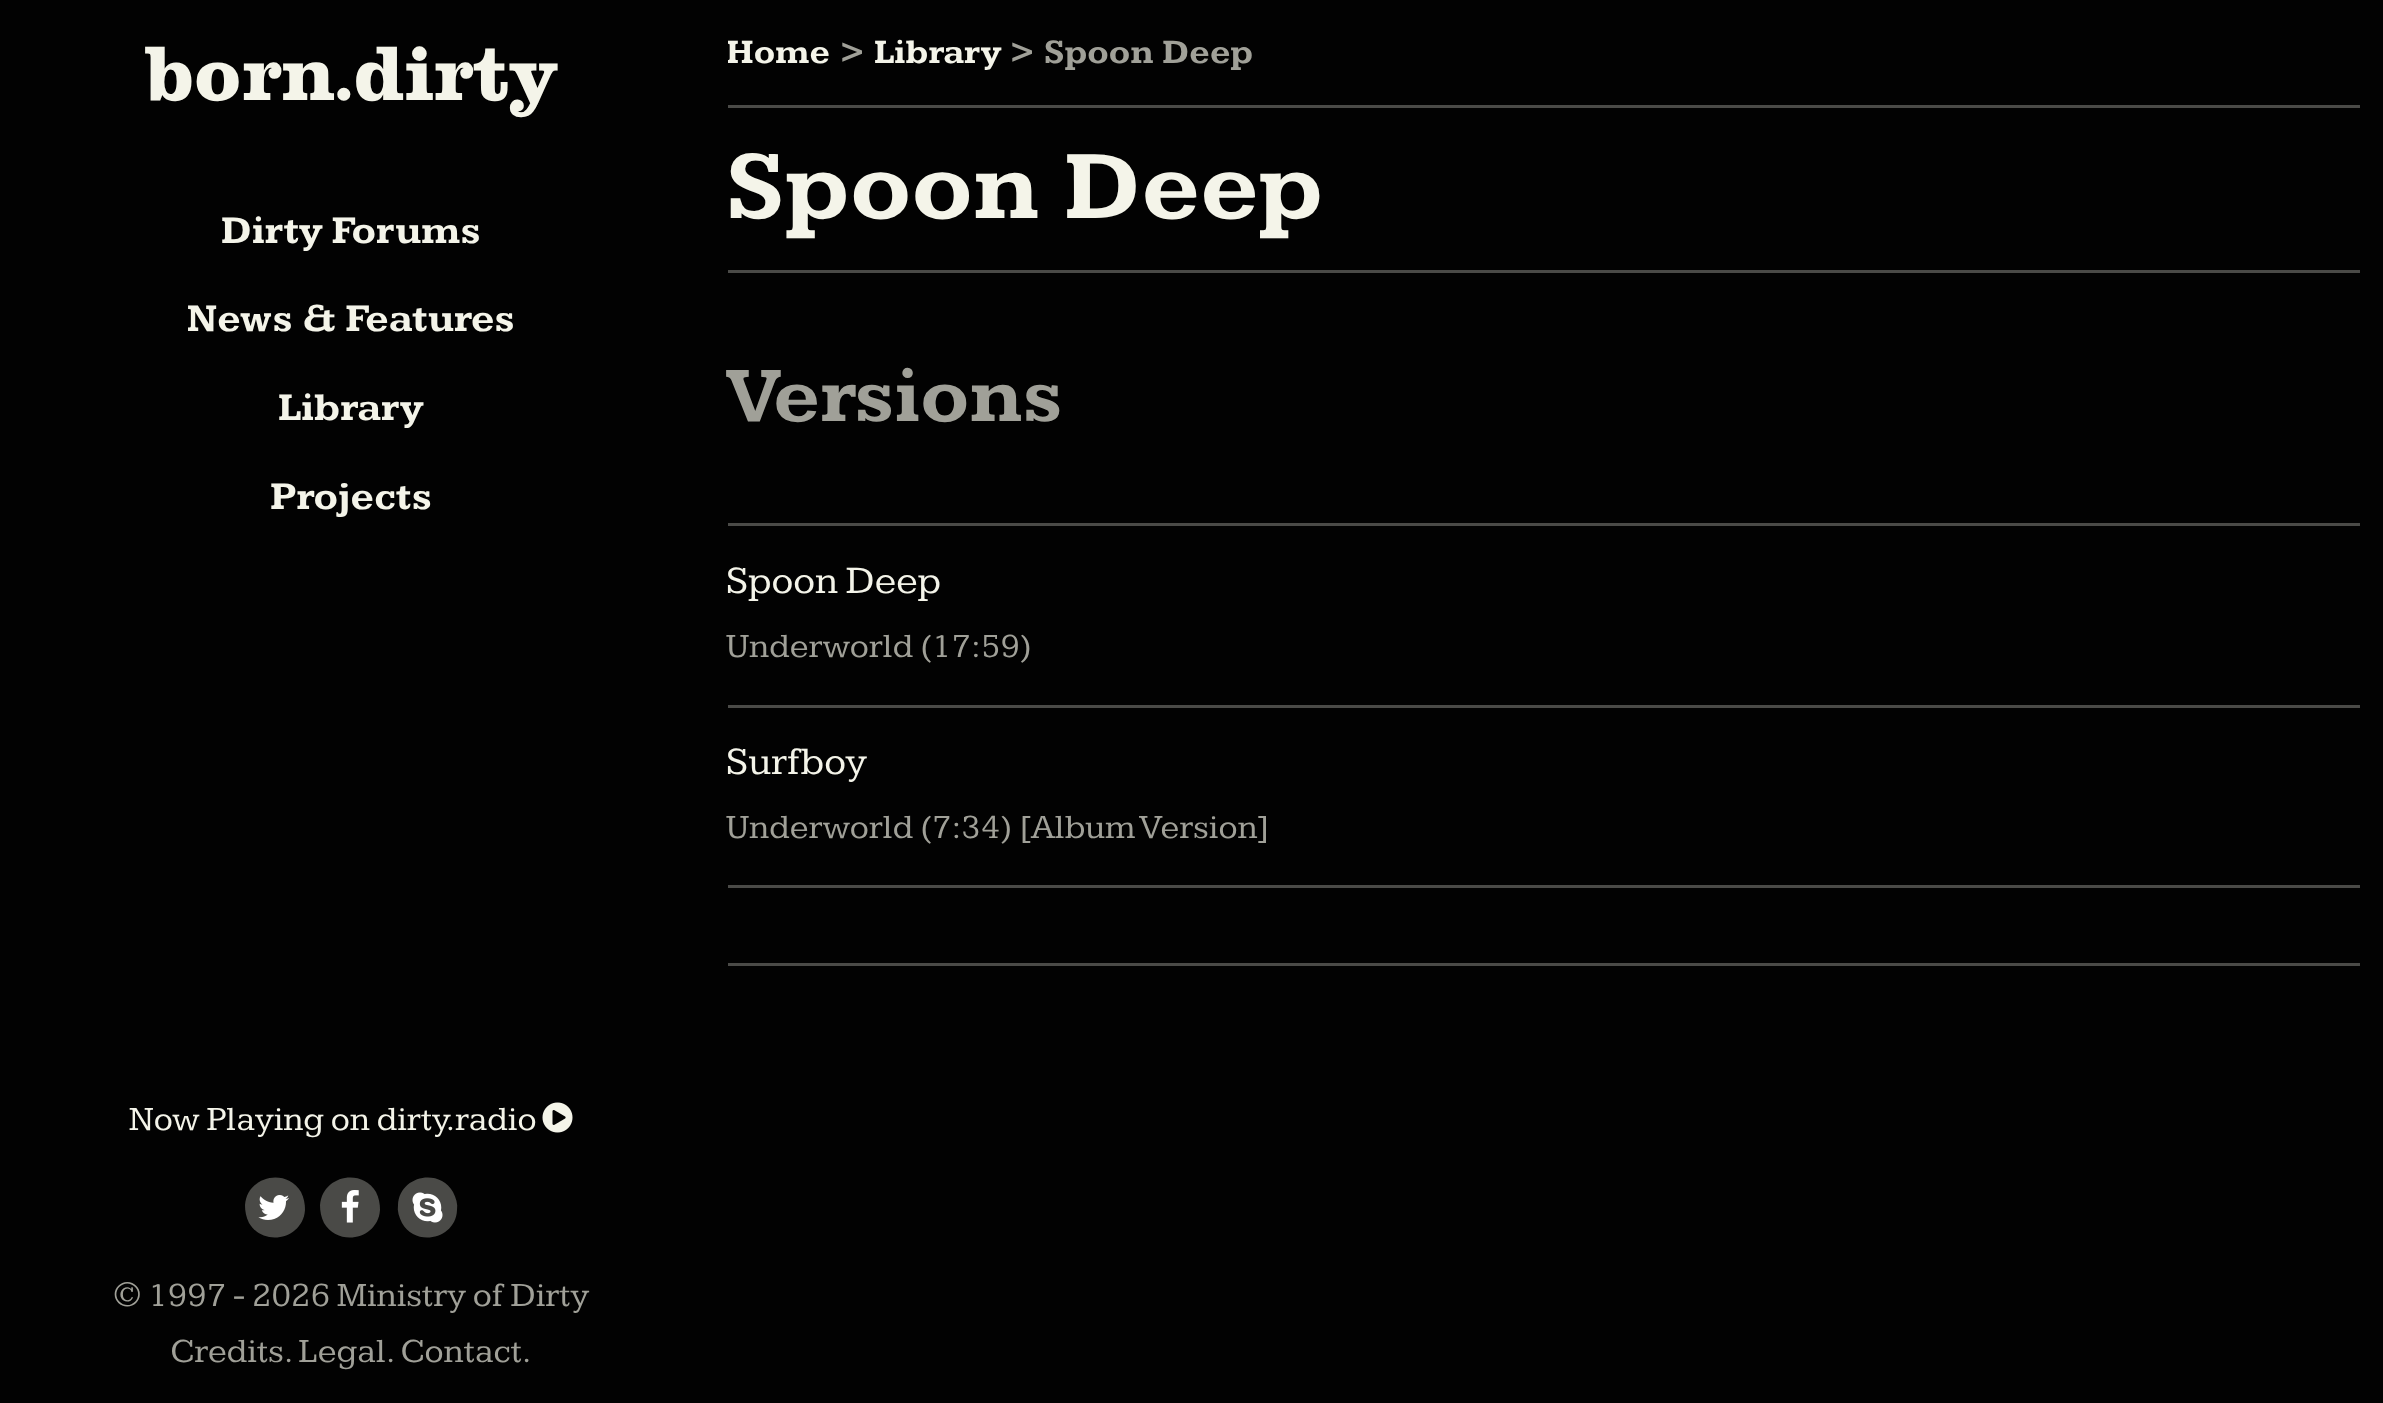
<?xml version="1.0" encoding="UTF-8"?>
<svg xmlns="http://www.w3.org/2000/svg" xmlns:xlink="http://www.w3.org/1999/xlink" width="2383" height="1403">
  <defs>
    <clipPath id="clip1"><rect x="728" y="25" width="1632" height="80" /></clipPath>
  </defs>
  <rect width="100%" height="100%" fill="#020202" />
  <image x="542" y="1102" width="31" height="31" xlink:href="image1.png" />
  <path d="M 301 1192 c 3 6 4 12 4 18 c -2 29 -41 38 -56 13 c -3 -6 -4 -12 -4 -18 c 2 -29 41 -38 56 -13 z" fill="#4a4a47" />
  <image x="258" y="1195" width="31" height="25" xlink:href="image2.png" />
  <path d="M 376 1192 c 3 6 4 12 4 18 c -2 29 -41 38 -56 13 c -3 -6 -4 -12 -4 -18 c 2 -29 41 -38 56 -13 z" fill="#4a4a47" />
  <image x="341" y="1190" width="18" height="33" xlink:href="image3.png" />
  <path d="M 453 1192 c 3 6 5 12 4 18 c -1 29 -41 38 -55 13 c -3 -6 -5 -12 -4 -18 c 1 -29 41 -38 55 -13 z" fill="#4a4a47" />
  <image x="412" y="1192" width="31" height="31" xlink:href="image4.png" />
  <rect x="728" y="105" width="1632" height="3" fill="#4a4a47" />
  <rect x="728" y="270" width="1632" height="3" fill="#4a4a47" />
  <rect x="728" y="523" width="1632" height="3" fill="#4a4a47" />
  <rect x="728" y="705" width="1632" height="3" fill="#4a4a47" />
  <rect x="728" y="885" width="1632" height="3" fill="#4a4a47" />
  <rect x="728" y="963" width="1632" height="3" fill="#4a4a47" />
  <text x="144" y="100" style="font-family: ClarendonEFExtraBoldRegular; font-size: 80px; font-weight: 800; fill: #f4f4e9">born.dirty</text>
  <text x="221" y="243" style="font-family: Kameron; font-size: 40px; font-weight: bold; fill: #f4f4e9">Dirty Forums</text>
  <text x="187" y="331" style="font-family: Kameron; font-size: 40px; font-weight: bold; fill: #f4f4e9">News &amp; Features</text>
  <text x="278" y="420" style="font-family: Kameron; font-size: 40px; font-weight: bold; fill: #f4f4e9">Library</text>
  <text x="270" y="509" style="font-family: Kameron; font-size: 40px; font-weight: bold; fill: #f4f4e9">Projects</text>
  <text x="129" y="1130" style="font-family: Kameron; font-size: 35px; fill: #f4f4e9">Now Playing on dirty.radio</text>
  <text x="113" y="1306" style="font-family: Kameron; font-size: 35px; fill: #a0a098">© 1997 - 2026 Ministry of Dirty</text>
  <text x="170" y="1362" style="font-family: Kameron; font-size: 35px; fill: #a0a098">Credits</text>
  <text x="284" y="1362" style="font-family: Kameron; font-size: 35px; fill: #a0a098">. Legal. Contact.</text>
  <g clip-path="url(#clip1)">
    <text x="726" y="63" style="font-family: Kameron; font-size: 35px; font-weight: bold; fill: #f4f4e9">Home</text>
  </g>
  <text x="839" y="63" style="font-family: Kameron; font-size: 35px; font-weight: bold; fill: #a0a098">&gt;</text>
  <text x="874" y="63" style="font-family: Kameron; font-size: 35px; font-weight: bold; fill: #f4f4e9">Library</text>
  <text x="1009" y="63" style="font-family: Kameron; font-size: 35px; font-weight: bold; fill: #a0a098">&gt; Spoon Deep</text>
  <text x="726" y="218" style="font-family: Kameron; font-size: 100px; font-weight: bold; fill: #f4f4e9">Spoon Deep</text>
  <text x="726" y="421" style="font-family: Kameron; font-size: 80px; font-weight: bold; fill: #a0a098">Versions</text>
  <text x="726" y="593" style="font-family: Kameron; font-size: 40px; fill: #f4f4e9">Spoon Deep</text>
  <text x="726" y="657" style="font-family: Kameron; font-size: 35px; fill: #a0a098">Underworld (17:59)</text>
  <text x="726" y="774" style="font-family: Kameron; font-size: 40px; fill: #f4f4e9">Surfboy</text>
  <text x="726" y="838" style="font-family: Kameron; font-size: 35px; fill: #a0a098">Underworld (7:34) [Album Version]</text>
</svg>
